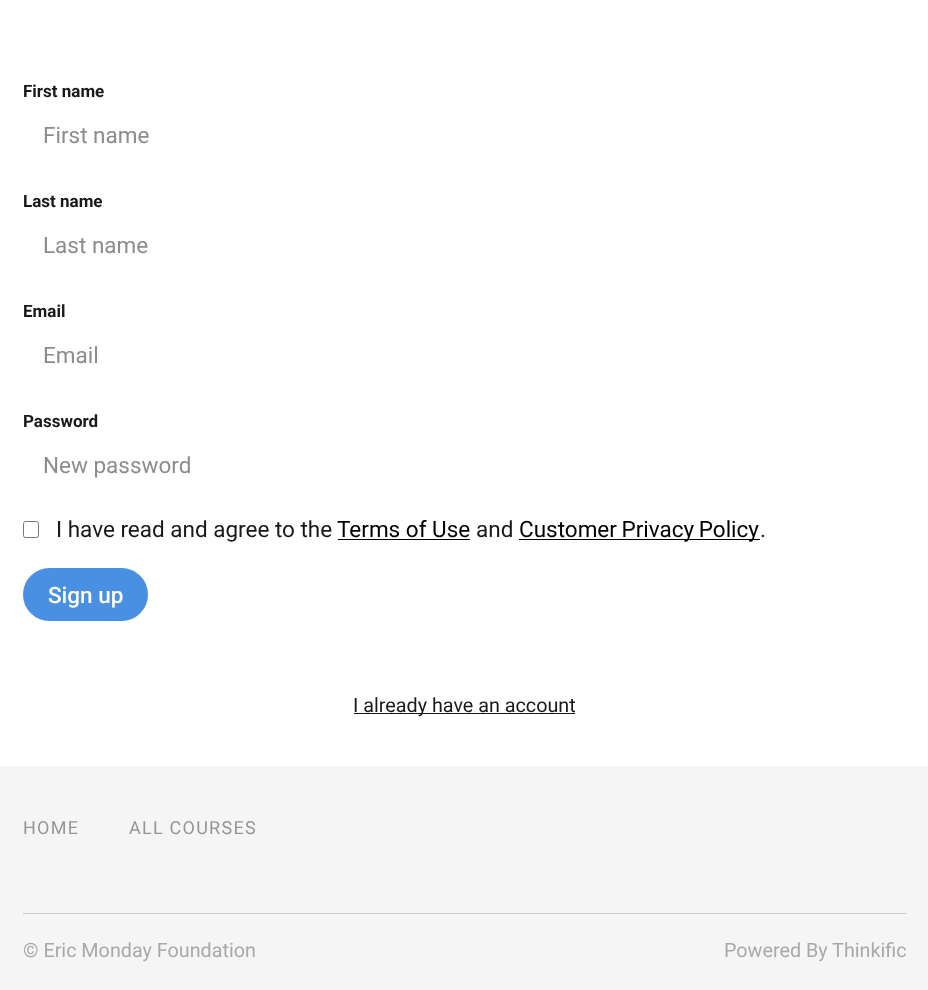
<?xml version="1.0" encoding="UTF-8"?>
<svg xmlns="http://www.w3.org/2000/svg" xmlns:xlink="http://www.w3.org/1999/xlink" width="928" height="990">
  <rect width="100%" height="100%" fill="#ffffff" />
  <rect x="23.5" y="521.5" width="15" height="16" rx="2" fill="none" stroke="#767676" />
  <rect x="338" y="539" width="132" height="1" fill="#000000" />
  <rect x="519" y="539" width="241" height="1" fill="#000000" />
  <rect x="24.5" y="569.5" width="122" height="50" rx="25" fill="#4a90e2" stroke="#4a90e2" stroke-width="3" />
  <rect x="354" y="713" width="221" height="1" fill="#191919" />
  <rect y="766" width="928" height="224" fill="#f5f5f5" />
  <rect x="23" y="913" width="883" height="1" fill="#c9c9c9" />
  <text x="23" y="97" style="font-family: Roboto; font-size: 17px; font-weight: bold; fill: #191919">First name</text>
  <text x="43" y="143" style="font-family: Roboto; font-size: 22.5px; fill: #8c8c8c">First name</text>
  <text x="23" y="207" style="font-family: Roboto; font-size: 17px; font-weight: bold; fill: #191919">Last name</text>
  <text x="43" y="253" style="font-family: Roboto; font-size: 22.5px; fill: #8c8c8c">Last name</text>
  <text x="23" y="317" style="font-family: Roboto; font-size: 17px; font-weight: bold; fill: #191919">Email</text>
  <text x="43" y="363" style="font-family: Roboto; font-size: 22.5px; fill: #8c8c8c">Email</text>
  <text x="23" y="427" style="font-family: Roboto; font-size: 17px; font-weight: bold; fill: #191919">Password</text>
  <text x="43" y="473" style="font-family: Roboto; font-size: 22.5px; fill: #8c8c8c">New password</text>
  <text x="56" y="537" style="font-family: Roboto; font-size: 22.5px; fill: #191919">I have read and agree to the</text>
  <text x="337" y="537" style="font-family: Roboto; font-size: 22.5px; fill: #000000">Terms of Use</text>
  <text x="476" y="537" style="font-family: Roboto; font-size: 22.5px; fill: #191919">and</text>
  <text x="519" y="537" word-spacing="-1" style="font-family: Roboto; font-size: 22.5px; fill: #000000">Customer Privacy Policy</text>
  <text x="760" y="537" style="font-family: Roboto; font-size: 22.5px; fill: #191919">.</text>
  <text x="48" y="603" style="font-family: Roboto; font-size: 22.5px; font-weight: 500; fill: #ffffff">Sign up</text>
  <text x="353" y="712" style="font-family: Roboto; font-size: 19.75px; fill: #191919">I already have an account</text>
  <text x="23" y="834" style="font-family: Roboto; font-size: 18px; letter-spacing: 1.25px; fill: #969696">HOME</text>
  <text x="129" y="834" style="font-family: Roboto; font-size: 18px; letter-spacing: 1.25px; fill: #969696">ALL COURSES</text>
  <text x="23" y="957" style="font-family: Roboto; font-size: 19.75px; fill: #a9a9a9">© Eric Monday Foundation</text>
  <text x="724" y="957" style="font-family: Roboto; font-size: 19.75px; fill: #a9a9a9">Powered By Thinkific</text>
</svg>
